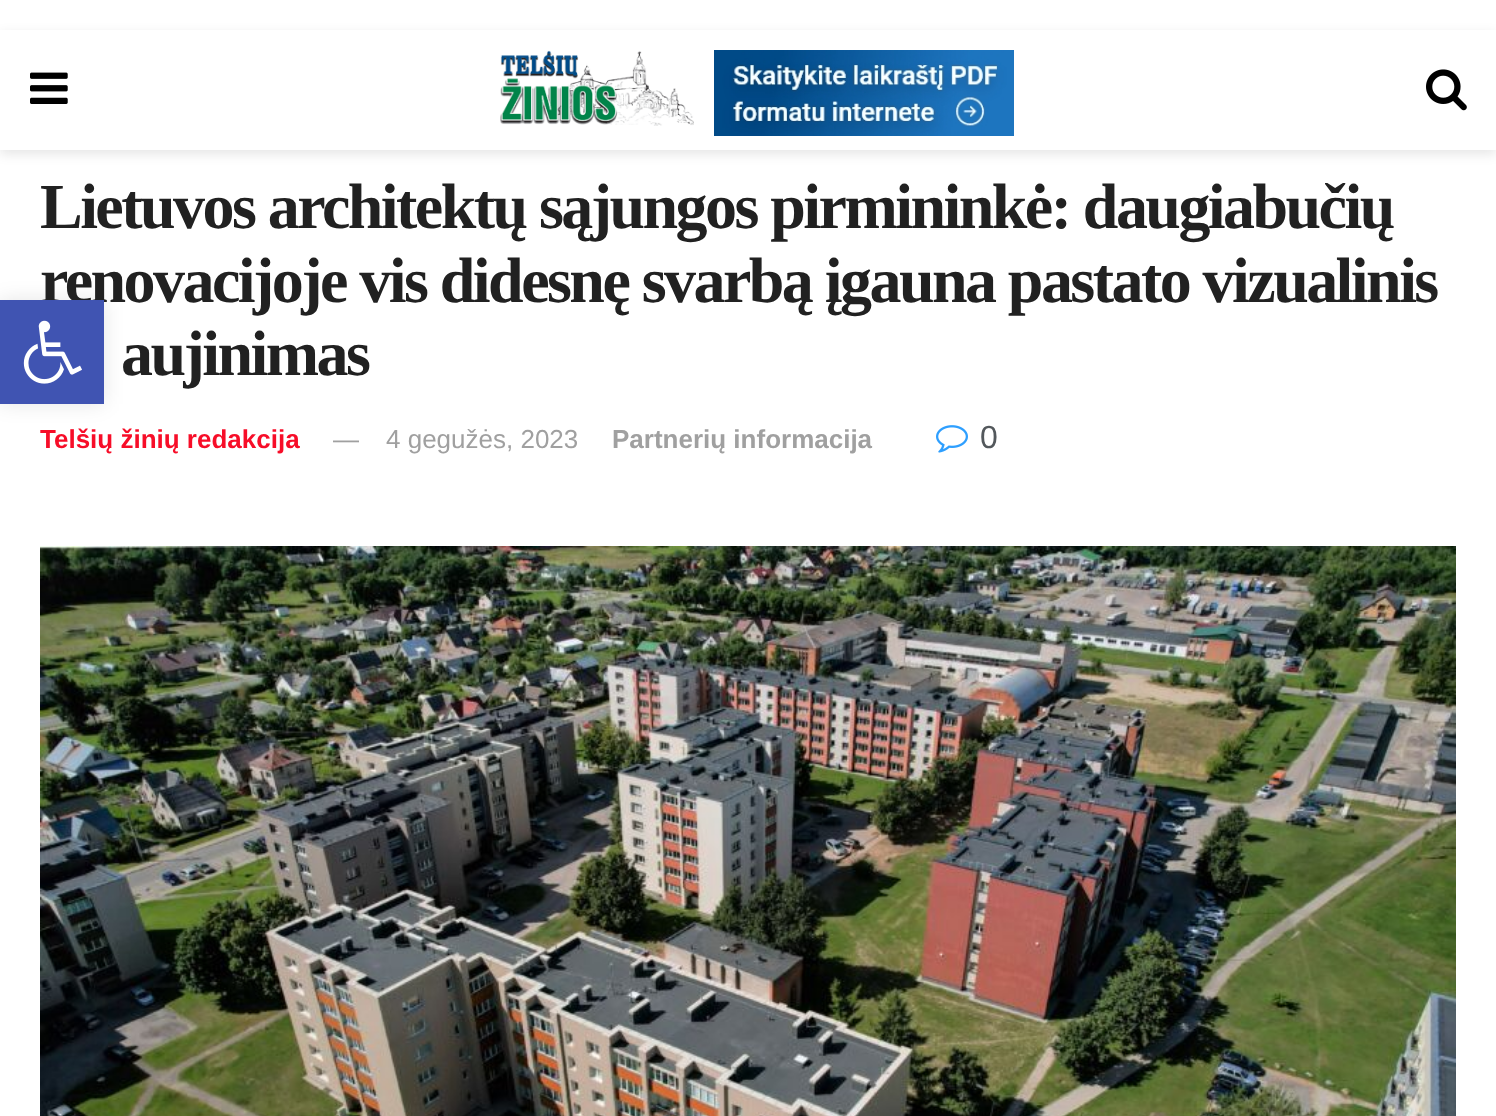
<?xml version="1.0" encoding="UTF-8"?>
<svg xmlns="http://www.w3.org/2000/svg" xmlns:xlink="http://www.w3.org/1999/xlink" width="1496" height="1116">
  <defs>
    <clipPath id="clip1"><path d="M 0 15 h 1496 v 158 h -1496 z m 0 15 h 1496 v 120 h -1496 z" clip-rule="evenodd" /></clipPath>
  </defs>
  <rect width="100%" height="100%" fill="#ffffff" />
  <g clip-path="url(#clip1)">
    <rect y="34" width="1496" height="120" fill="#000000" fill-opacity="0.1" filter="blur(6px)" />
  </g>
  <image x="30" y="72" width="38" height="32" xlink:href="image1.png" />
  <image x="500" y="50" width="194" height="76" xlink:href="image2.png" />
  <image x="714" y="50" width="300" height="86" xlink:href="image3.png" />
  <image x="1426" y="69" width="41" height="42" xlink:href="image4.png" />
  <image x="936" y="425" width="32" height="28" xlink:href="image5.png" />
  <image x="40" y="546" width="1416" height="570" xlink:href="image6.png" />
  <rect y="300" width="104" height="104" fill="#000000" fill-opacity="0.1" filter="blur(10px)" />
  <text x="40" y="228" style="font-family: Liberation Serif; font-size: 64px; font-weight: bold; letter-spacing: -2.55px; fill: #212121">Lietuvos architektų sąjungos pirmininkė: daugiabučių</text>
  <text x="40" y="302" style="font-family: Liberation Serif; font-size: 64px; font-weight: bold; letter-spacing: -2.55px; fill: #212121">renovacijoje vis didesnę svarbą įgauna pastato vizualinis</text>
  <text x="121" y="375" style="font-family: Liberation Serif; font-size: 64px; font-weight: bold; letter-spacing: -2.55px; fill: #212121">aujinimas</text>
  <text x="40" y="448" style="font-family: Liberation Sans; font-size: 26px; font-weight: bold; fill: #f70d28">Telšių žinių redakcija</text>
  <text x="333" y="448" style="font-family: Liberation Sans; font-size: 26px; fill: #a0a0a0">—</text>
  <text x="386" y="448" style="font-family: Liberation Sans; font-size: 26px; fill: #a0a0a0">4 gegužės, 2023</text>
  <text x="612" y="448" style="font-family: Liberation Sans; font-size: 26px; font-weight: bold; fill: #a0a0a0">Partnerių informacija</text>
  <text x="980" y="448" style="font-family: Liberation Sans; font-size: 32px; fill: #53585c">0</text>
  <rect y="300" width="104" height="104" fill="#4054b2" />
  <image x="23" y="320" width="59" height="64" xlink:href="image7.png" />
</svg>
